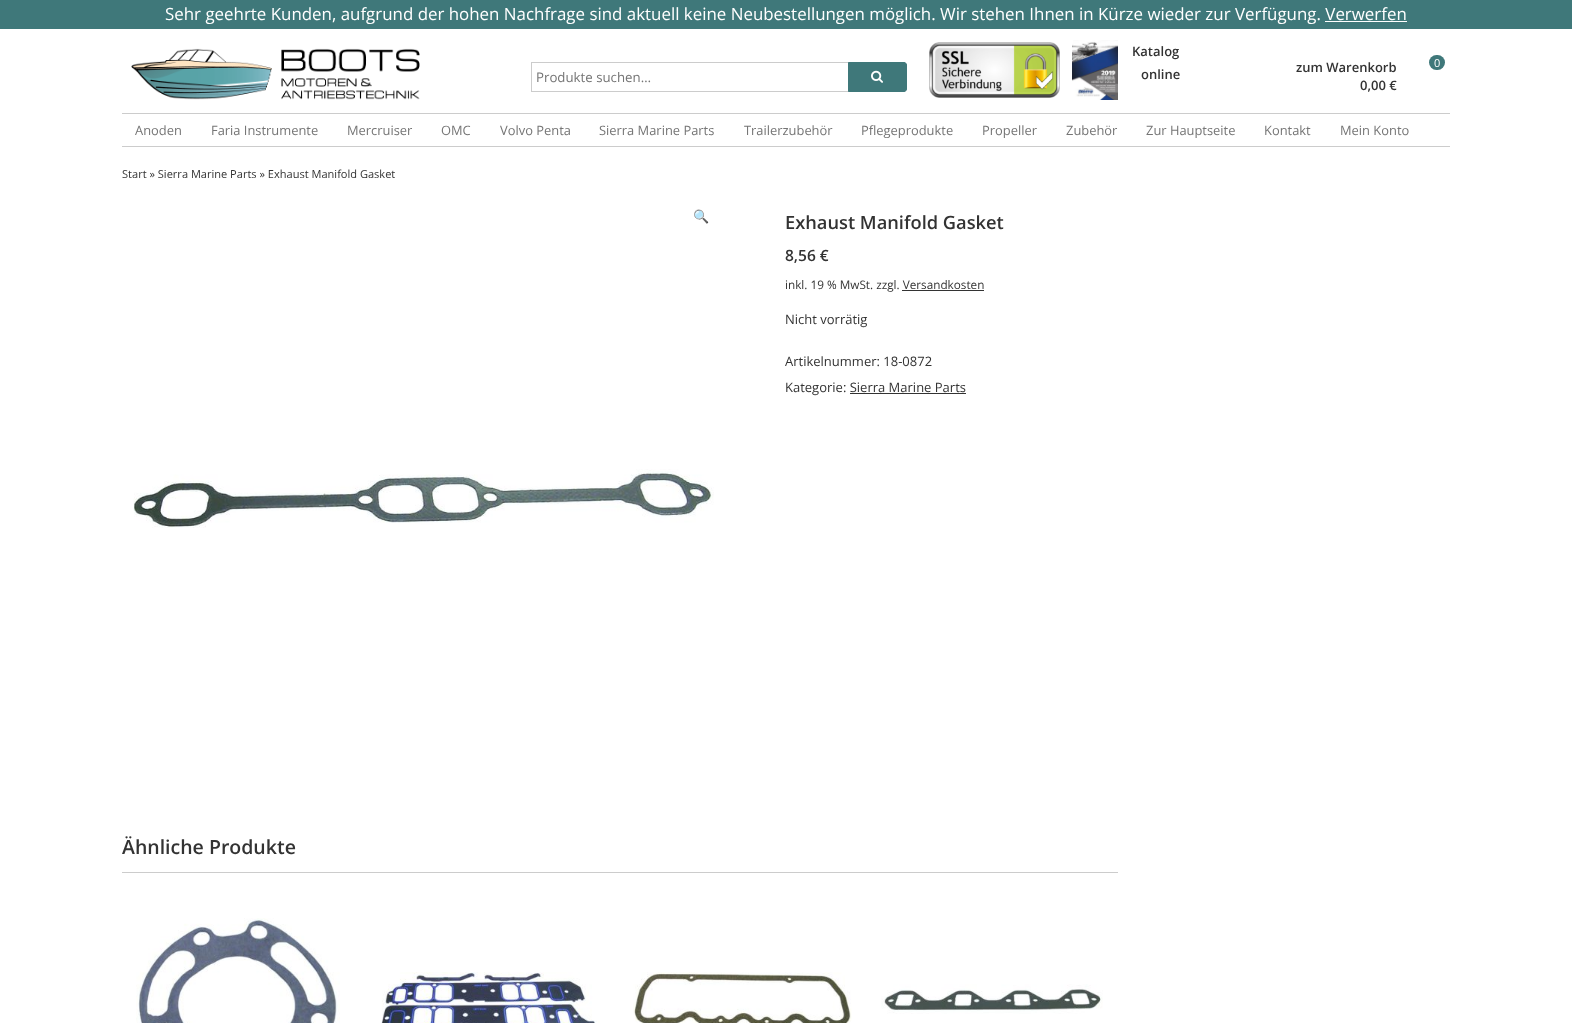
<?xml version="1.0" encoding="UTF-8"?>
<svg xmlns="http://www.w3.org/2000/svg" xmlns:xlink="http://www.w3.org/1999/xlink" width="1572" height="1023">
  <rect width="100%" height="100%" fill="#ffffff" />
  <rect width="1572" height="29" fill="#3f787a" />
  <rect x="1325" y="21" width="82" height="1" fill="#ffffff" />
  <image x="131" y="48" width="289" height="52" xlink:href="image1.png" />
  <rect x="531" y="62" width="318" height="1" fill="#cccccc" />
  <rect x="531" y="91" width="318" height="1" fill="#cccccc" />
  <rect x="531" y="62" width="1" height="30" fill="#cccccc" />
  <path d="M 848.5 62.5 h 55.5 c 1.5 0 2.5 1 2.5 2.5 v 24 c 0 1.5 -1 2.5 -2.5 2.5 h -55.5 z" fill="#3f787a" stroke="#3f787a" />
  <image x="871" y="70" width="12" height="13" xlink:href="image2.png" />
  <image x="929" y="42" width="131" height="56" xlink:href="image3.png" />
  <image x="1072" y="40" width="46" height="60" xlink:href="image4.png" />
  <rect x="1429" y="55" width="16" height="15" rx="7.5" fill="#3f787a" />
  <rect x="122" y="113" width="1328" height="1" fill="#cccccc" />
  <rect x="122" y="146" width="1328" height="1" fill="#cccccc" />
  <image x="133" y="469" width="581" height="59" xlink:href="image5.png" />
  <rect x="902" y="290" width="82" height="1" fill="#333333" />
  <rect x="850" y="393" width="116" height="1" fill="#333333" />
  <rect x="122" y="872" width="996" height="1" fill="#cccccc" />
  <image x="136" y="918" width="204" height="105" xlink:href="image6.png" />
  <image x="381" y="972" width="219" height="51" xlink:href="image7.png" />
  <image x="633" y="972" width="219" height="51" xlink:href="image8.png" />
  <image x="881" y="984" width="222" height="30" xlink:href="image9.png" />
  <text x="165" y="20" style="font-family: Open Sans; font-size: 16.9px; fill: #ffffff">Sehr geehrte Kunden, aufgrund der hohen Nachfrage sind aktuell keine Neubestellungen möglich. Wir stehen Ihnen in Kürze wieder zur Verfügung. Verwerfen</text>
  <text x="536" y="82" style="font-family: Open Sans; font-size: 13.25px; fill: #757575">Produkte suchen…</text>
  <text x="1132" y="56" style="font-family: Open Sans; font-size: 13px; font-weight: 600; fill: #333333">Katalog</text>
  <text x="1141" y="79" style="font-family: Open Sans; font-size: 13px; font-weight: 600; fill: #333333">online</text>
  <text x="1296" y="72" style="font-family: Open Sans; font-size: 13px; font-weight: 600; fill: #333333">zum Warenkorb</text>
  <text x="1360" y="90" style="font-family: Open Sans; font-size: 13px; font-weight: 600; fill: #333333">0,00 €</text>
  <text x="1434" y="67" style="font-family: Open Sans; font-size: 11px; fill: #ffffff">0</text>
  <text x="135" y="135" style="font-family: Open Sans; font-size: 12.9px; fill: #757575">Anoden</text>
  <text x="211" y="135" style="font-family: Open Sans; font-size: 12.9px; fill: #757575">Faria Instrumente</text>
  <text x="347" y="135" style="font-family: Open Sans; font-size: 12.9px; fill: #757575">Mercruiser</text>
  <text x="441" y="135" style="font-family: Open Sans; font-size: 12.9px; fill: #757575">OMC</text>
  <text x="500" y="135" style="font-family: Open Sans; font-size: 12.9px; fill: #757575">Volvo Penta</text>
  <text x="599" y="135" style="font-family: Open Sans; font-size: 12.9px; fill: #757575">Sierra Marine Parts</text>
  <text x="744" y="135" style="font-family: Open Sans; font-size: 12.9px; fill: #757575">Trailerzubehör</text>
  <text x="861" y="135" style="font-family: Open Sans; font-size: 12.9px; fill: #757575">Pflegeprodukte</text>
  <text x="982" y="135" style="font-family: Open Sans; font-size: 12.9px; fill: #757575">Propeller</text>
  <text x="1066" y="135" style="font-family: Open Sans; font-size: 12.9px; fill: #757575">Zubehör</text>
  <text x="1146" y="135" style="font-family: Open Sans; font-size: 12.9px; fill: #757575">Zur Hauptseite</text>
  <text x="1264" y="135" style="font-family: Open Sans; font-size: 12.9px; fill: #757575">Kontakt</text>
  <text x="1340" y="135" style="font-family: Open Sans; font-size: 12.9px; fill: #757575">Mein Konto</text>
  <text x="122" y="178" style="font-family: Open Sans; font-size: 11.05px; fill: #333333">Start » Sierra Marine Parts » Exhaust Manifold Gasket</text>
  <text x="693" y="221" style="font-family: Noto Color Emoji; font-size: 13px; fill: #333333">🔍</text>
  <text x="785" y="229" style="font-family: Open Sans; font-size: 18.25px; font-weight: 600; fill: #333333">Exhaust Manifold Gasket</text>
  <text x="785" y="261" style="font-family: Open Sans; font-size: 15.5px; font-weight: 600; fill: #333333">8,56 €</text>
  <text x="785" y="289" style="font-family: Open Sans; font-size: 11.75px; fill: #333333">inkl. 19 % MwSt. zzgl. Versandkosten</text>
  <text x="785" y="324" style="font-family: Open Sans; font-size: 13px; fill: #333333">Nicht vorrätig</text>
  <text x="785" y="366" style="font-family: Open Sans; font-size: 13px; fill: #333333">Artikelnummer: 18-0872</text>
  <text x="785" y="392" style="font-family: Open Sans; font-size: 13px; fill: #333333">Kategorie: Sierra Marine Parts</text>
  <text x="122" y="854" style="font-family: Open Sans; font-size: 19.5px; font-weight: 600; fill: #333333">Ähnliche Produkte</text>
</svg>
